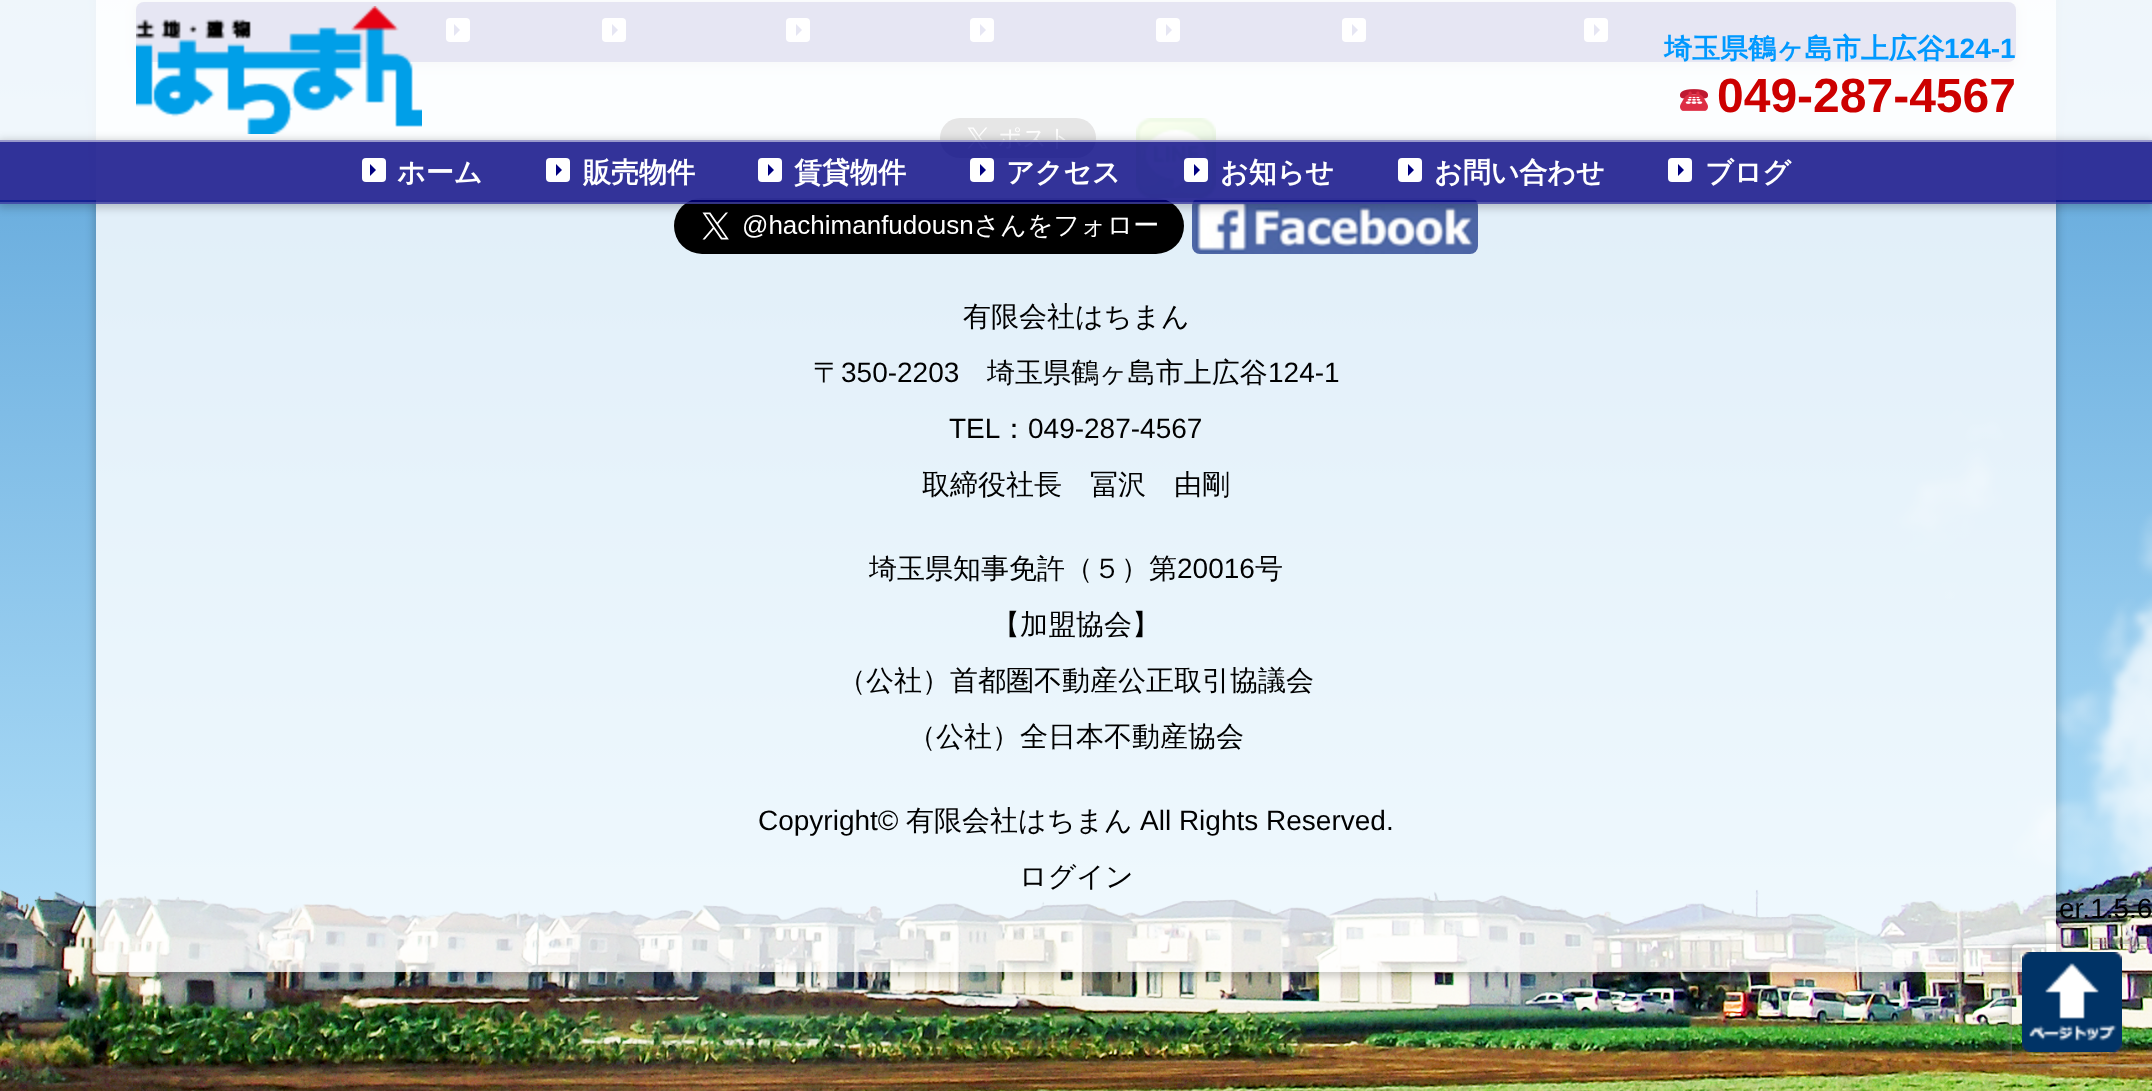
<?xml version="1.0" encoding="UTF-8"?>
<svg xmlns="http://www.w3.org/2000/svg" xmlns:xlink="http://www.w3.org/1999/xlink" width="2152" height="1091">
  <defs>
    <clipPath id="clip1"><path d="M 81 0 h 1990 v 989 h -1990 z m 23 -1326 h 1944 c 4.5 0 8 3.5 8 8 v 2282 c 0 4.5 -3.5 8 -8 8 h -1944 c -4.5 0 -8 -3.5 -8 -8 v -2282 c 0 -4.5 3.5 -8 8 -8 z" clip-rule="evenodd" /></clipPath>
    <clipPath id="clip2"><path d="M 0 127 h 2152 v 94 h -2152 z m 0 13 h 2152 v 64 h -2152 z" clip-rule="evenodd" /></clipPath>
    <clipPath id="clip3"><path d="M 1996 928 h 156 v 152 h -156 z m 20 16 h 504 c 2 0 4 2 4 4 v 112 c 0 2 -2 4 -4 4 h -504 c -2 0 -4 -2 -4 -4 v -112 c 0 -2 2 -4 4 -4 z" clip-rule="evenodd" /></clipPath>
  </defs>
  <rect width="100%" height="100%" fill="#ffffff" />
  <image x="0" y="0" width="2152" height="1091" xlink:href="image1.png" />
  <g clip-path="url(#clip1)">
    <rect x="94" y="-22" width="1964" height="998" rx="10" fill="#000000" fill-opacity="0.2" filter="blur(4px)" />
  </g>
  <rect x="96" y="-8" width="1960" height="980" rx="8" fill="#ffffff" fill-opacity="0.8" />
  <rect x="134" y="2" width="1884" height="64" rx="10" fill="#000000" fill-opacity="0.2" filter="blur(4px)" />
  <rect x="136" y="2" width="1880" height="60" rx="8" fill="#000080" />
  <rect x="446" y="18" width="24" height="24" rx="4" fill="#ffffff" />
  <path d="M 454 36 v -12 l 6 6 z" fill="#000080" />
  <rect x="602" y="18" width="24" height="24" rx="4" fill="#ffffff" />
  <path d="M 612 36 v -12 l 6 6 z" fill="#000080" />
  <rect x="786" y="18" width="24" height="24" rx="4" fill="#ffffff" />
  <path d="M 796 36 v -12 l 6 6 z" fill="#000080" />
  <rect x="970" y="18" width="24" height="24" rx="4" fill="#ffffff" />
  <path d="M 980 36 v -12 l 6 6 z" fill="#000080" />
  <rect x="1156" y="18" width="24" height="24" rx="4" fill="#ffffff" />
  <path d="M 1166 36 v -12 l 6 6 z" fill="#000080" />
  <rect x="1342" y="18" width="24" height="24" rx="4" fill="#ffffff" />
  <path d="M 1352 36 v -12 l 6 6 z" fill="#000080" />
  <rect x="1584" y="18" width="24" height="24" rx="4" fill="#ffffff" />
  <path d="M 1594 36 v -12 l 6 6 z" fill="#000080" />
  <image x="940" y="118" width="156" height="40" xlink:href="image4.png" />
  <image x="1136" y="118" width="80" height="80" xlink:href="image5.png" />
  <image x="674" y="198" width="510" height="56" xlink:href="image6.png" />
  <image x="1192" y="198" width="286" height="56" xlink:href="image7.png" />
  <rect width="2152" height="200" fill="#ffffff" fill-opacity="0.9" />
  <g clip-path="url(#clip2)">
    <rect x="-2" y="140" width="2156" height="68" fill="#000000" fill-opacity="0.2" filter="blur(4px)" />
  </g>
  <image x="136" y="6" width="286" height="128" xlink:href="image2.png" />
  <image x="1680" y="89" width="28" height="22" xlink:href="image3.png" />
  <rect y="140" width="2152" height="64" fill="#000080" fill-opacity="0.8" />
  <rect y="140" width="2152" height="2" fill="#ffffff" fill-opacity="0.5" />
  <rect y="202" width="2152" height="2" fill="#ffffff" fill-opacity="0.2" />
  <rect x="362" y="158" width="24" height="24" rx="4" fill="#ffffff" />
  <path d="M 370 176 v -12 l 6 6 z" fill="#000080" />
  <rect x="546" y="158" width="24" height="24" rx="4" fill="#ffffff" />
  <path d="M 556 176 v -12 l 6 6 z" fill="#000080" />
  <rect x="758" y="158" width="24" height="24" rx="4" fill="#ffffff" />
  <path d="M 768 176 v -12 l 6 6 z" fill="#000080" />
  <rect x="970" y="158" width="24" height="24" rx="4" fill="#ffffff" />
  <path d="M 980 176 v -12 l 6 6 z" fill="#000080" />
  <rect x="1184" y="158" width="24" height="24" rx="4" fill="#ffffff" />
  <path d="M 1194 176 v -12 l 6 6 z" fill="#000080" />
  <rect x="1398" y="158" width="24" height="24" rx="4" fill="#ffffff" />
  <path d="M 1408 176 v -12 l 6 6 z" fill="#000080" />
  <rect x="1668" y="158" width="24" height="24" rx="4" fill="#ffffff" />
  <path d="M 1678 176 v -12 l 6 6 z" fill="#000080" />
  <g clip-path="url(#clip3)">
    <rect x="2012" y="944" width="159" height="120" rx="4" fill="#808080" filter="blur(5px)" />
  </g>
  <image x="2022" y="952" width="100" height="100" xlink:href="image8.png" />
  <text x="1664" y="58" style="font-family: WenQuanYi Zen Hei; font-size: 28px; font-weight: bold; fill: #0099ff">埼玉県鶴ヶ島市上広谷</text>
  <text x="1944" y="58" style="font-family: Liberation Sans; font-size: 28px; font-weight: bold; fill: #0099ff">124-1</text>
  <text x="1717" y="112" style="font-family: Liberation Sans; font-size: 48px; font-weight: bold; fill: #cc0000">049-287-4567</text>
  <text x="397" y="182" style="font-family: WenQuanYi Zen Hei; font-size: 28px; font-weight: bold; fill: #ffffff">ホーム</text>
  <text x="583" y="182" style="font-family: WenQuanYi Zen Hei; font-size: 28px; font-weight: bold; fill: #ffffff">販売物件</text>
  <text x="794" y="182" style="font-family: WenQuanYi Zen Hei; font-size: 28px; font-weight: bold; fill: #ffffff">賃貸物件</text>
  <text x="1006" y="182" style="font-family: WenQuanYi Zen Hei; font-size: 28px; font-weight: bold; fill: #ffffff">アクセス</text>
  <text x="1220" y="182" style="font-family: WenQuanYi Zen Hei; font-size: 28px; font-weight: bold; fill: #ffffff">お知らせ</text>
  <text x="1434" y="182" style="font-family: WenQuanYi Zen Hei; font-size: 28px; font-weight: bold; fill: #ffffff">お問い合わせ</text>
  <text x="1705" y="182" style="font-family: WenQuanYi Zen Hei; font-size: 28px; font-weight: bold; fill: #ffffff">ブログ</text>
  <text x="963" y="326" style="font-family: WenQuanYi Zen Hei; font-size: 28px; font-weight: 500; fill: #000000">有限会社はちまん</text>
  <text x="813" y="382" style="font-family: WenQuanYi Zen Hei; font-size: 28px; font-weight: 500; fill: #000000">〒</text>
  <text x="841" y="382" style="font-family: Liberation Sans; font-size: 28px; fill: #000000">350-2203</text>
  <text x="987" y="382" style="font-family: WenQuanYi Zen Hei; font-size: 28px; font-weight: 500; fill: #000000">埼玉県鶴ヶ島市上広谷</text>
  <text x="1268" y="382" style="font-family: Liberation Sans; font-size: 28px; fill: #000000">124-1</text>
  <text x="949" y="438" style="font-family: Liberation Sans; font-size: 28px; fill: #000000">TEL</text>
  <text x="1000" y="438" style="font-family: WenQuanYi Zen Hei; font-size: 28px; font-weight: 500; fill: #000000">：</text>
  <text x="1028" y="438" style="font-family: Liberation Sans; font-size: 28px; fill: #000000">049-287-4567</text>
  <text x="922" y="494" style="font-family: WenQuanYi Zen Hei; font-size: 28px; font-weight: 500; fill: #000000">取締役社長　冨沢　由剛</text>
  <text x="869" y="578" style="font-family: WenQuanYi Zen Hei; font-size: 28px; font-weight: 500; fill: #000000">埼玉県知事免許（５）第</text>
  <text x="1177" y="578" style="font-family: Liberation Sans; font-size: 28px; fill: #000000">20016</text>
  <text x="1255" y="578" style="font-family: WenQuanYi Zen Hei; font-size: 28px; font-weight: 500; fill: #000000">号</text>
  <text x="992" y="634" style="font-family: WenQuanYi Zen Hei; font-size: 28px; font-weight: 500; fill: #000000">【加盟協会】</text>
  <text x="838" y="690" style="font-family: WenQuanYi Zen Hei; font-size: 28px; font-weight: 500; fill: #000000">（公社）首都圏不動産公正取引協議会</text>
  <text x="908" y="746" style="font-family: WenQuanYi Zen Hei; font-size: 28px; font-weight: 500; fill: #000000">（公社）全日本不動産協会</text>
  <text x="758" y="830" style="font-family: Liberation Sans; font-size: 28px; fill: #000000">Copyright©</text>
  <text x="906" y="830" style="font-family: WenQuanYi Zen Hei; font-size: 28px; font-weight: 500; fill: #000000">有限会社はちまん</text>
  <text x="1140" y="830" style="font-family: Liberation Sans; font-size: 28px; fill: #000000">All Rights Reserved.</text>
  <text x="1019" y="886" style="font-family: WenQuanYi Zen Hei; font-size: 28px; font-weight: 500; fill: #000000">ログイン</text>
  <text x="2059" y="918" style="font-family: Liberation Sans; font-size: 28px; fill: #000000">er.1.5.6</text>
</svg>
